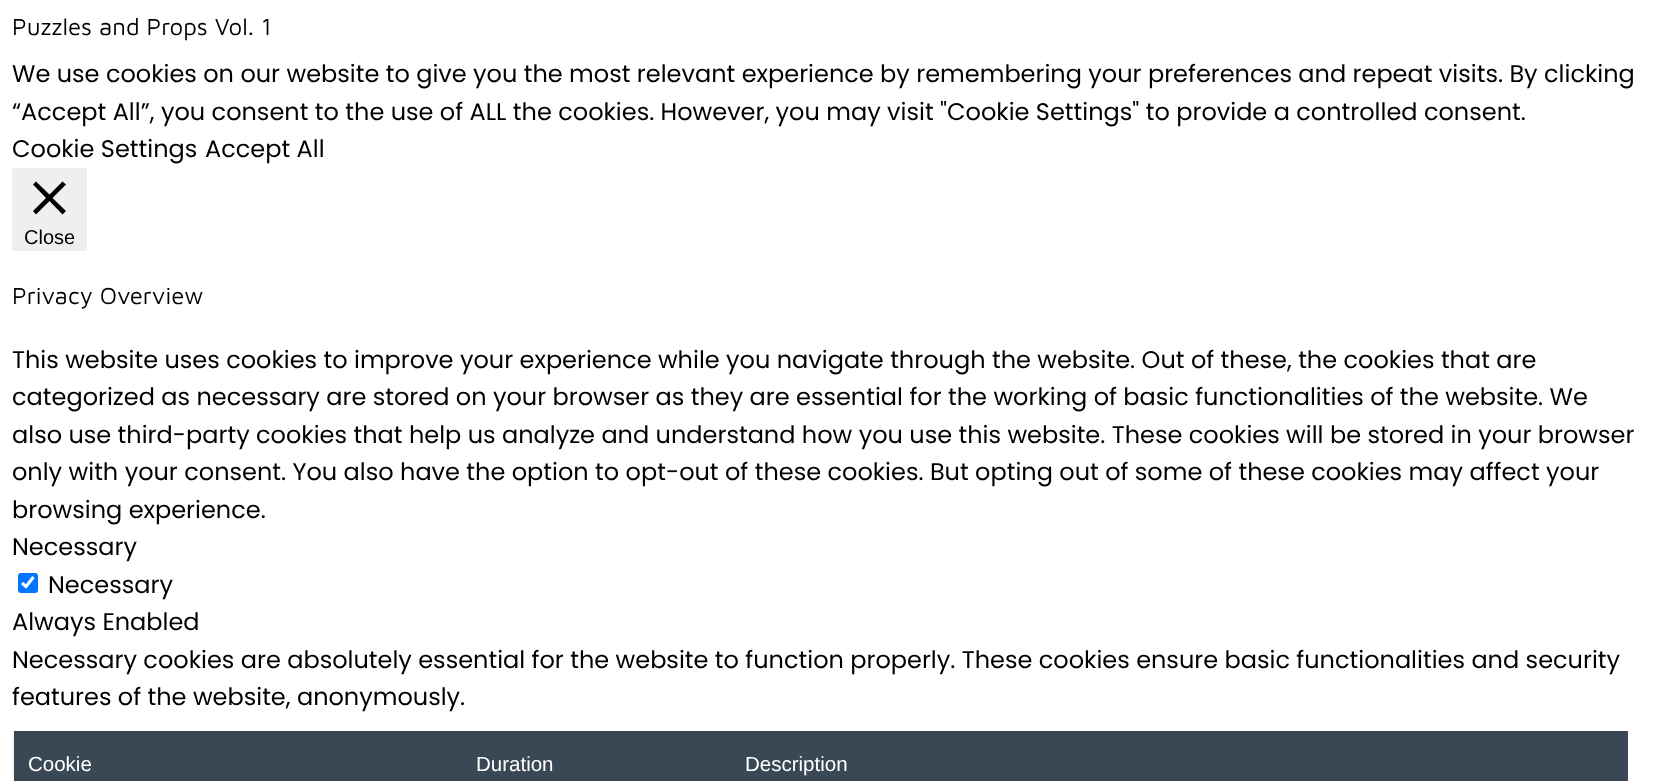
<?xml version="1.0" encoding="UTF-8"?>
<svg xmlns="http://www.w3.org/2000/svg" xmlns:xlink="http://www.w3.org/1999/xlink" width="1655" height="781">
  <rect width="100%" height="100%" fill="#ffffff" />
  <rect x="12" y="168" width="75" height="83" fill="#efefef" />
  <path d="M 66 184.5 l -3.5 -3 l -13 13 l -13.5 -13 l -3 3 l 13 13.5 l -13 13 l 3 3.5 l 13.5 -13.5 l 13 13.5 l 3.5 -3.5 l -13.5 -13 z" fill="#000000" />
  <rect x="18" y="573" width="20" height="20" rx="3" fill="#0075ff" />
  <path d="M 22 583 l 4 3.5 l 7.5 -9.5" fill="none" stroke="#ffffff" stroke-width="3.1" />
  <rect x="12" y="731" width="2" height="50" fill="#f3f5f7" />
  <rect x="14" y="731" width="1614" height="50" fill="#3a4856" />
  <text x="12" y="35" style="font-family: Maven Pro; font-size: 24px; fill: #000000">Puzzles and Props Vol. 1</text>
  <text x="12" y="82" style="font-family: Poppins; font-size: 24px; fill: #000000">We use cookies on our website to give you the most relevant experience by remembering your preferences and repeat visits. By clicking</text>
  <text x="12" y="120" style="font-family: Poppins; font-size: 24px; fill: #000000">“Accept All”, you consent to the use of ALL the cookies. However, you may visit "Cookie Settings" to provide a controlled consent.</text>
  <text x="12" y="157" style="font-family: Poppins; font-size: 24px; fill: #000000">Cookie Settings</text>
  <text x="205" y="157" style="font-family: Poppins; font-size: 24px; fill: #000000">Accept All</text>
  <text x="24" y="244" style="font-family: Liberation Sans; font-size: 20px; fill: #000000">Close</text>
  <text x="12" y="304" style="font-family: Maven Pro; font-size: 24px; fill: #000000">Privacy Overview</text>
  <text x="12" y="368" style="font-family: Poppins; font-size: 24px; fill: #000000">This website uses cookies to improve your experience while you navigate through the website. Out of these, the cookies that are</text>
  <text x="12" y="405" style="font-family: Poppins; font-size: 24px; fill: #000000">categorized as necessary are stored on your browser as they are essential for the working of basic functionalities of the website. We</text>
  <text x="12" y="443" style="font-family: Poppins; font-size: 24px; fill: #000000">also use third-party cookies that help us analyze and understand how you use this website. These cookies will be stored in your browser</text>
  <text x="12" y="480" style="font-family: Poppins; font-size: 24px; fill: #000000">only with your consent. You also have the option to opt-out of these cookies. But opting out of some of these cookies may affect your</text>
  <text x="12" y="518" style="font-family: Poppins; font-size: 24px; fill: #000000">browsing experience.</text>
  <text x="12" y="555" style="font-family: Poppins; font-size: 24px; fill: #000000">Necessary</text>
  <text x="48" y="593" style="font-family: Poppins; font-size: 24px; fill: #000000">Necessary</text>
  <text x="12" y="630" style="font-family: Poppins; font-size: 24px; fill: #000000">Always Enabled</text>
  <text x="12" y="668" style="font-family: Poppins; font-size: 24px; fill: #000000">Necessary cookies are absolutely essential for the website to function properly. These cookies ensure basic functionalities and security</text>
  <text x="12" y="705" style="font-family: Poppins; font-size: 24px; fill: #000000">features of the website, anonymously.</text>
  <text x="28" y="771" style="font-family: Liberation Sans; font-size: 20.5px; fill: #ffffff">Cookie</text>
  <text x="476" y="771" style="font-family: Liberation Sans; font-size: 20.5px; fill: #ffffff">Duration</text>
  <text x="745" y="771" style="font-family: Liberation Sans; font-size: 20.5px; fill: #ffffff">Description</text>
</svg>
